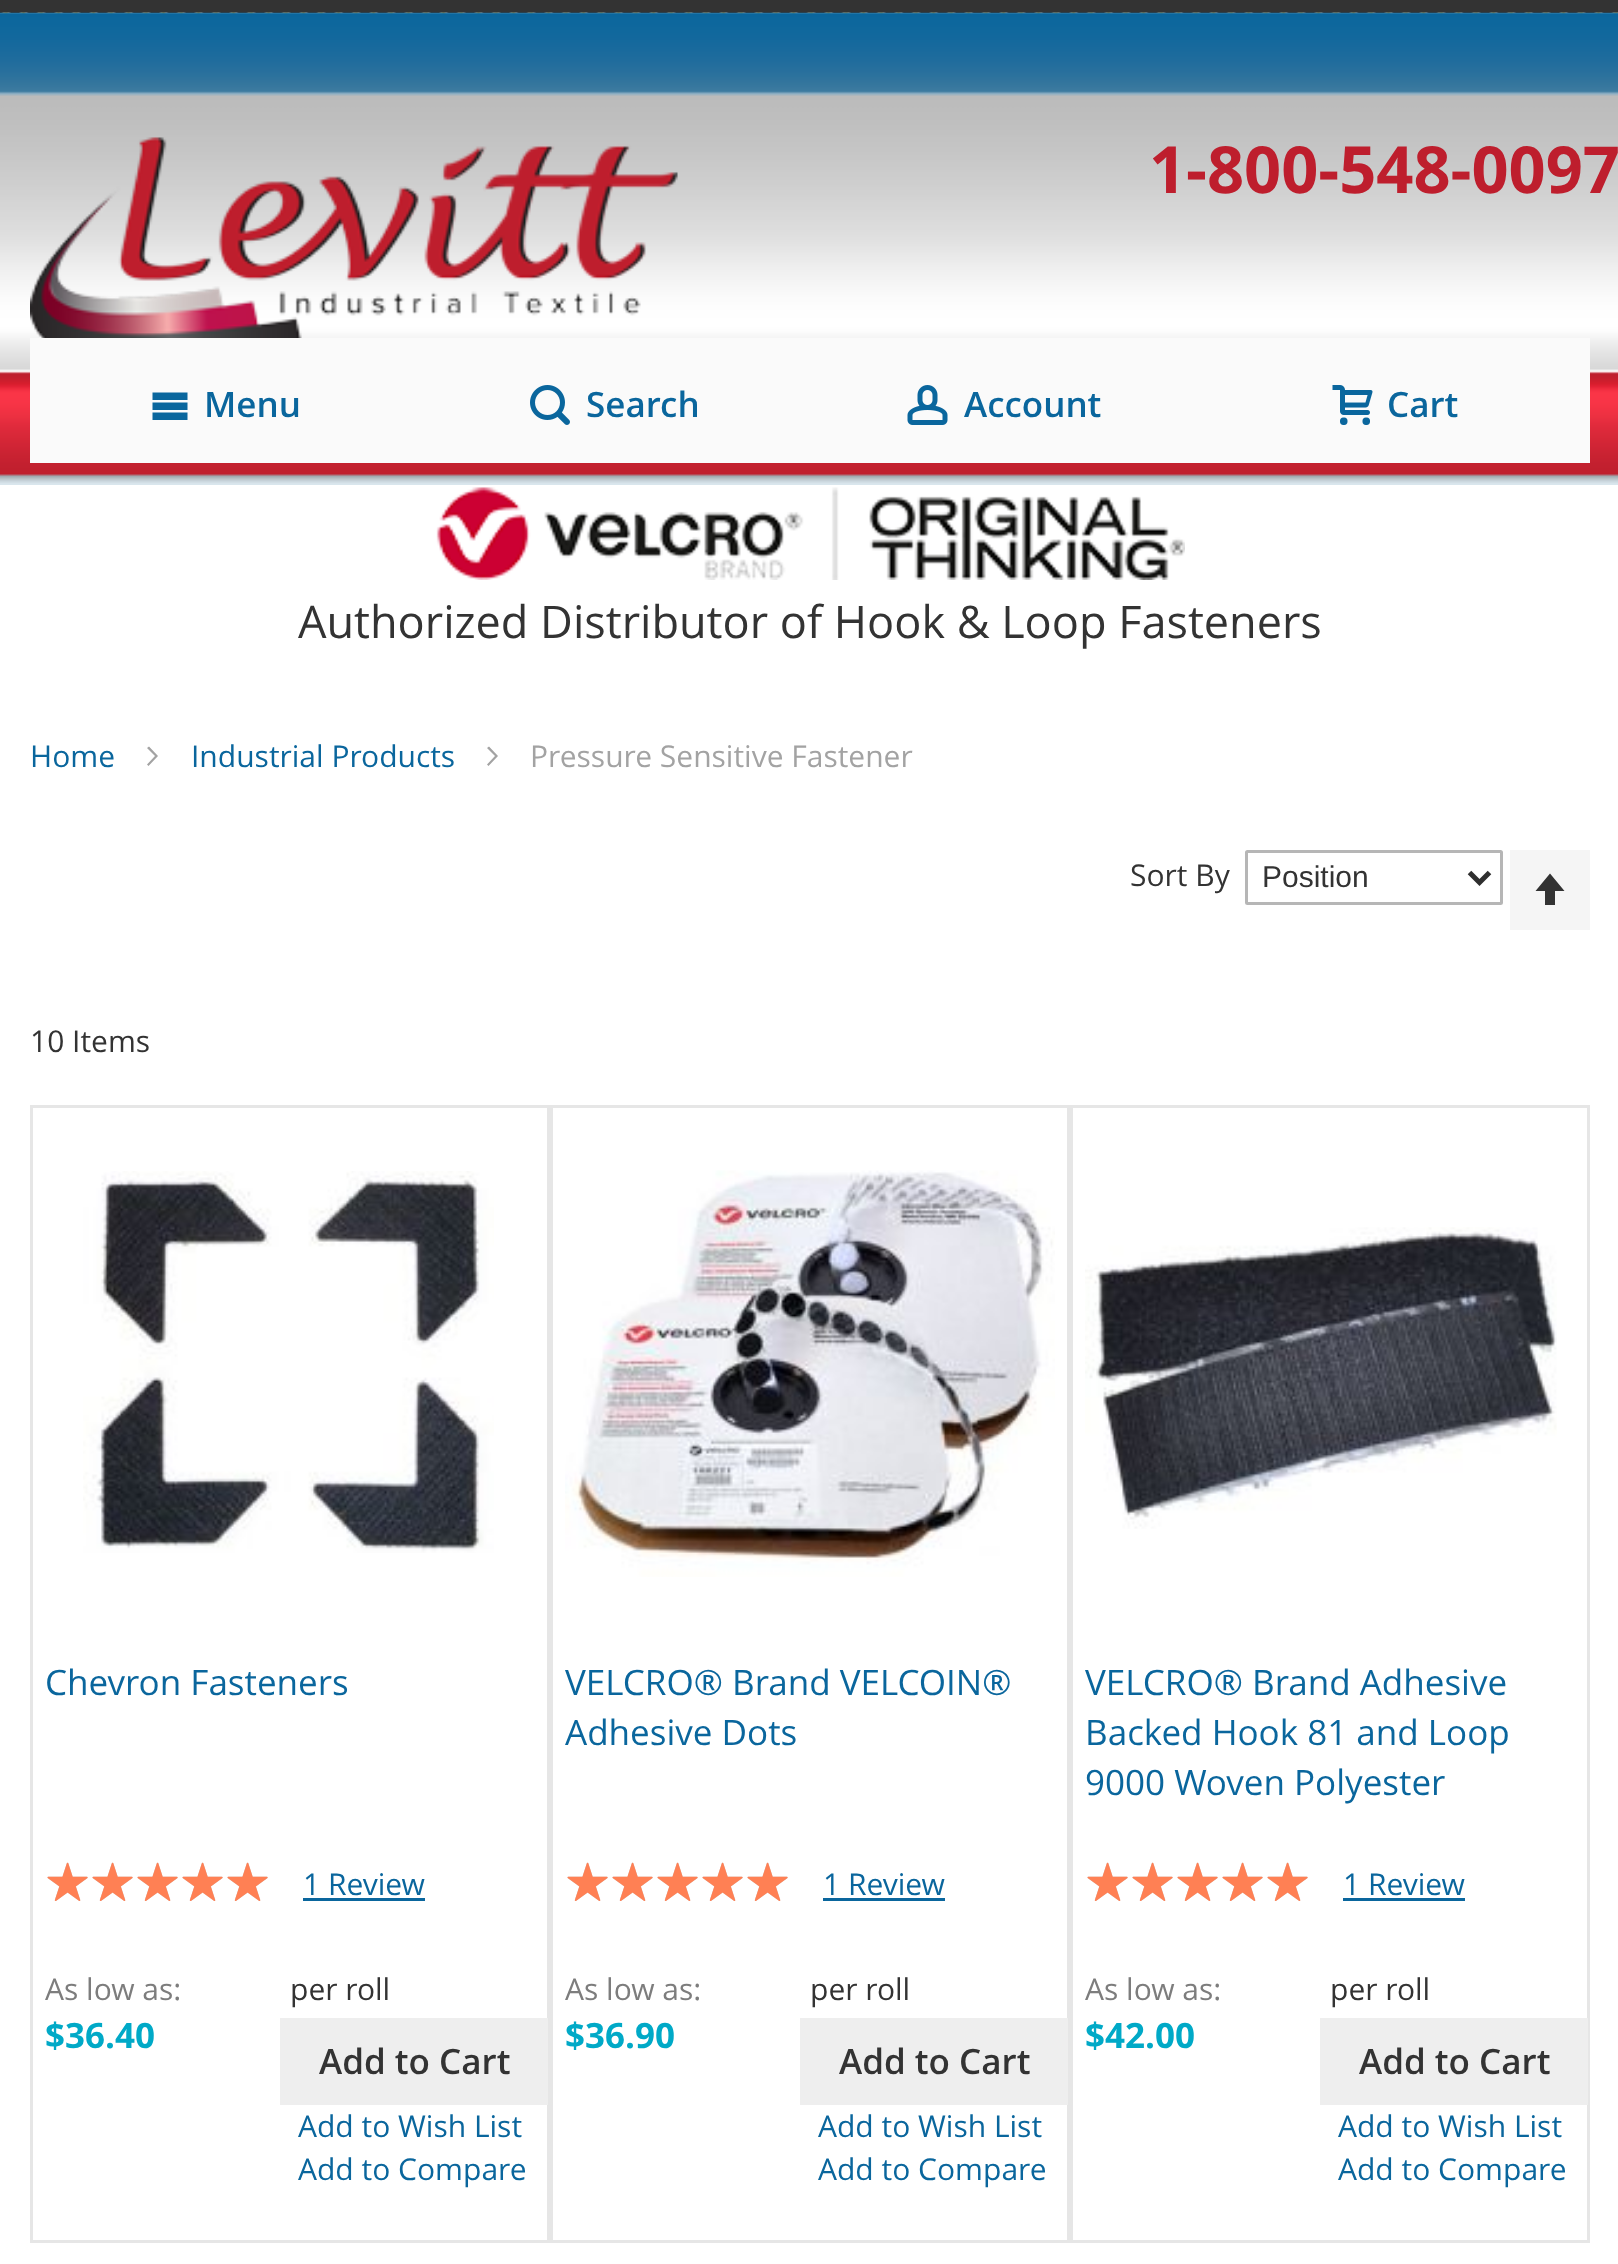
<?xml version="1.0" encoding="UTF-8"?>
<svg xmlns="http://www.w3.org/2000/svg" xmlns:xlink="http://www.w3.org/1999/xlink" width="1618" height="2264">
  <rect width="100%" height="100%" fill="#ffffff" />
  <rect width="1618" height="13" fill="#333333" />
  <image x="0" y="12" width="1618" height="473" xlink:href="image1.png" />
  <image x="436" y="487" width="749" height="93" xlink:href="image2.png" />
  <image x="30" y="137" width="648" height="201" xlink:href="image3.png" />
  <rect x="30" y="338" width="1560" height="125" fill="#fafafa" />
  <path d="M 152.5 392.5 h 35 v 7.5 h -35 z m 0 10 h 35 v 7.5 h -35 z m 0 10 h 35 v 7.5 h -35 z" fill="#0a669d" />
  <image x="530" y="385" width="40" height="40" xlink:href="image4.png" />
  <image x="907" y="385" width="41" height="40" xlink:href="image5.png" />
  <image x="1332" y="385" width="41" height="40" xlink:href="image6.png" />
  <path d="M 158 756 l -9 -9.5 l -2 1.5 l 8 8 l -8 8.5 l 1.5 1.5 z" fill="#a3a3a3" />
  <path d="M 498 756 l -9 -9.5 l -2 1.5 l 8 8 l -8 8.5 l 1.5 1.5 z" fill="#a3a3a3" />
  <rect x="1246.5" y="851.5" width="255" height="52" rx="1" fill="none" stroke="#b6b6b6" stroke-width="3" />
  <path d="M 1469.5 872.5 l 10 10 l 10 -10" fill="none" stroke="#2f2f2f" stroke-width="5" />
  <rect x="1510" y="850" width="80" height="80" fill="#f5f5f5" />
  <path d="M 1550 873.5 l -14.5 17.5 h 9.5 v 14 h 10 v -14 h 9.5 z" fill="#333333" />
  <rect x="31.5" y="1106.5" width="517" height="1135" fill="none" stroke="#e6e6e6" stroke-width="3" />
  <image x="83" y="1171" width="411" height="382" xlink:href="image7.png" />
  <image x="47" y="1862" width="221" height="39" xlink:href="image8.png" />
  <image x="47" y="1862" width="221" height="39" xlink:href="image9.png" />
  <rect x="303" y="1898" width="122" height="3" fill="#0a669d" />
  <rect x="280" y="2018" width="268" height="87" fill="#eeeeee" />
  <rect x="551.5" y="1106.5" width="517" height="1135" fill="none" stroke="#e6e6e6" stroke-width="3" />
  <image x="565" y="1170" width="490" height="407" xlink:href="image10.png" />
  <image x="567" y="1862" width="221" height="39" xlink:href="image8.png" />
  <image x="567" y="1862" width="221" height="39" xlink:href="image9.png" />
  <rect x="823" y="1898" width="122" height="3" fill="#0a669d" />
  <rect x="800" y="2018" width="268" height="87" fill="#eeeeee" />
  <rect x="1071.5" y="1106.5" width="517" height="1135" fill="none" stroke="#e6e6e6" stroke-width="3" />
  <image x="1085" y="1227" width="472" height="302" xlink:href="image11.png" />
  <image x="1087" y="1862" width="221" height="39" xlink:href="image8.png" />
  <image x="1087" y="1862" width="221" height="39" xlink:href="image9.png" />
  <rect x="1343" y="1898" width="122" height="3" fill="#0a669d" />
  <rect x="1320" y="2018" width="268" height="87" fill="#eeeeee" />
  <text x="1149" y="193" style="font-family: Open Sans; font-size: 65px; font-weight: bold; fill: #be1e2d">1-800-548-0097</text>
  <text x="298" y="638" style="font-family: Open Sans; font-size: 45px; fill: #333333">Authorized Distributor of Hook &amp; Loop Fasteners</text>
  <text x="204" y="417" style="font-family: Open Sans; font-size: 35px; font-weight: 600; fill: #0a669d">Menu</text>
  <text x="586" y="417" style="font-family: Open Sans; font-size: 35px; font-weight: 600; fill: #0a669d">Search</text>
  <text x="964" y="417" style="font-family: Open Sans; font-size: 35px; font-weight: 600; fill: #0a669d">Account</text>
  <text x="1387" y="417" style="font-family: Open Sans; font-size: 35px; font-weight: 600; fill: #0a669d">Cart</text>
  <text x="30" y="767" style="font-family: Open Sans; font-size: 30px; fill: #0a669d">Home</text>
  <text x="191" y="767" style="font-family: Open Sans; font-size: 30px; fill: #0a669d">Industrial Products</text>
  <text x="530" y="767" style="font-family: Open Sans; font-size: 30px; fill: #a3a3a3">Pressure Sensitive Fastener</text>
  <text x="1130" y="886" style="font-family: Open Sans; font-size: 30px; fill: #333333">Sort By</text>
  <text x="1262" y="887" style="font-family: Liberation Sans; font-size: 30px; fill: #333333">Position</text>
  <text x="30" y="1052" style="font-family: Open Sans; font-size: 30px; fill: #333333">10 Items</text>
  <text x="45" y="1695" style="font-family: Open Sans; font-size: 35px; fill: #0a669d">Chevron Fasteners</text>
  <text x="303" y="1895" style="font-family: Open Sans; font-size: 30px; fill: #0a669d">1 Review</text>
  <text x="45" y="2000" style="font-family: Open Sans; font-size: 30px; fill: #7d7d7d">As low as:</text>
  <text x="45" y="2048" style="font-family: Open Sans; font-size: 35px; font-weight: bold; fill: #00a9c7">$36.40</text>
  <text x="290" y="2000" style="font-family: Open Sans; font-size: 30px; fill: #333333">per roll</text>
  <text x="319" y="2074" style="font-family: Open Sans; font-size: 35px; font-weight: 600; fill: #333333">Add to Cart</text>
  <text x="298" y="2137" style="font-family: Open Sans; font-size: 30px; fill: #0a669d">Add to Wish List</text>
  <text x="298" y="2180" style="font-family: Open Sans; font-size: 30px; fill: #0a669d">Add to Compare</text>
  <text x="565" y="1695" style="font-family: Open Sans; font-size: 35px; fill: #0a669d">VELCRO® Brand VELCOIN®</text>
  <text x="565" y="1745" style="font-family: Open Sans; font-size: 35px; fill: #0a669d">Adhesive Dots</text>
  <text x="823" y="1895" style="font-family: Open Sans; font-size: 30px; fill: #0a669d">1 Review</text>
  <text x="565" y="2000" style="font-family: Open Sans; font-size: 30px; fill: #7d7d7d">As low as:</text>
  <text x="565" y="2048" style="font-family: Open Sans; font-size: 35px; font-weight: bold; fill: #00a9c7">$36.90</text>
  <text x="810" y="2000" style="font-family: Open Sans; font-size: 30px; fill: #333333">per roll</text>
  <text x="839" y="2074" style="font-family: Open Sans; font-size: 35px; font-weight: 600; fill: #333333">Add to Cart</text>
  <text x="818" y="2137" style="font-family: Open Sans; font-size: 30px; fill: #0a669d">Add to Wish List</text>
  <text x="818" y="2180" style="font-family: Open Sans; font-size: 30px; fill: #0a669d">Add to Compare</text>
  <text x="1085" y="1695" style="font-family: Open Sans; font-size: 35px; fill: #0a669d">VELCRO® Brand Adhesive</text>
  <text x="1085" y="1745" style="font-family: Open Sans; font-size: 35px; fill: #0a669d">Backed Hook 81 and Loop</text>
  <text x="1085" y="1795" style="font-family: Open Sans; font-size: 35px; fill: #0a669d">9000 Woven Polyester</text>
  <text x="1343" y="1895" style="font-family: Open Sans; font-size: 30px; fill: #0a669d">1 Review</text>
  <text x="1085" y="2000" style="font-family: Open Sans; font-size: 30px; fill: #7d7d7d">As low as:</text>
  <text x="1085" y="2048" style="font-family: Open Sans; font-size: 35px; font-weight: bold; fill: #00a9c7">$42.00</text>
  <text x="1330" y="2000" style="font-family: Open Sans; font-size: 30px; fill: #333333">per roll</text>
  <text x="1359" y="2074" style="font-family: Open Sans; font-size: 35px; font-weight: 600; fill: #333333">Add to Cart</text>
  <text x="1338" y="2137" style="font-family: Open Sans; font-size: 30px; fill: #0a669d">Add to Wish List</text>
  <text x="1338" y="2180" style="font-family: Open Sans; font-size: 30px; fill: #0a669d">Add to Compare</text>
</svg>
